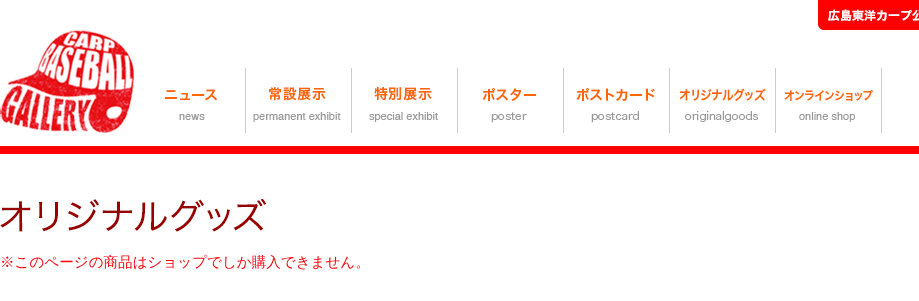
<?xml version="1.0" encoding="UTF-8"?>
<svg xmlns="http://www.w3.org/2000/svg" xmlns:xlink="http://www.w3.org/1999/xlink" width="919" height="301">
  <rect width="100%" height="100%" fill="#ffffff" />
  <image x="818" y="0" width="101" height="30" xlink:href="image1.png" />
  <rect y="146" width="919" height="8" fill="#ff0000" />
  <image x="0" y="30" width="134" height="103" xlink:href="image2.png" />
  <image x="165" y="68" width="81" height="65" xlink:href="image3.png" />
  <image x="253" y="68" width="99" height="65" xlink:href="image4.png" />
  <image x="369" y="68" width="89" height="65" xlink:href="image5.png" />
  <image x="482" y="68" width="82" height="65" xlink:href="image6.png" />
  <image x="576" y="68" width="94" height="65" xlink:href="image7.png" />
  <image x="679" y="68" width="97" height="65" xlink:href="image8.png" />
  <image x="784" y="68" width="98" height="65" xlink:href="image9.png" />
  <image x="0" y="199" width="267" height="33" xlink:href="image10.png" />
  <text x="0" y="267" style="font-family: WenQuanYi Zen Hei; font-size: 14.55px; font-weight: 500; fill: #fa070f">※このページの商品はショップでしか購入できません。</text>
</svg>
